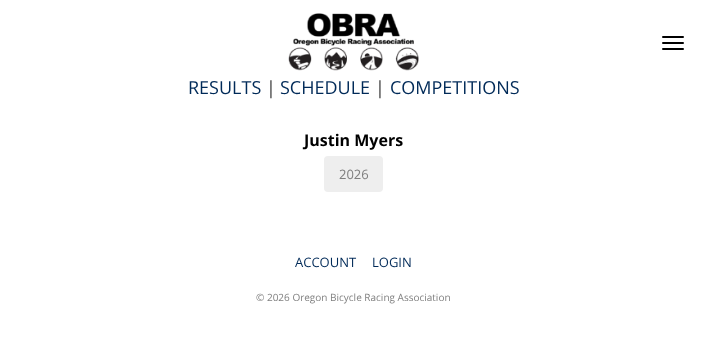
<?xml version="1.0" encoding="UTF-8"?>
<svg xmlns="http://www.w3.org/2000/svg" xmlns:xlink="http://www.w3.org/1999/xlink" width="707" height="359">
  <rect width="100%" height="100%" fill="#ffffff" />
  <image x="288" y="13" width="131" height="58" xlink:href="image1.png" />
  <rect x="662" y="36" width="22" height="2" rx="1" fill="#000000" />
  <rect x="662" y="42" width="22" height="2" rx="1" fill="#000000" />
  <rect x="662" y="48" width="22" height="2" rx="1" fill="#000000" />
  <rect x="324" y="156" width="59" height="36" rx="4" fill="#eeeeee" />
  <text x="188" y="94" style="font-family: Open Sans; font-size: 18px; fill: #002a58">RESULTS</text>
  <text x="266" y="94" style="font-family: Open Sans; font-size: 18px; fill: #363636">|</text>
  <text x="280" y="94" style="font-family: Open Sans; font-size: 18px; fill: #002a58">SCHEDULE</text>
  <text x="375" y="94" style="font-family: Open Sans; font-size: 18px; fill: #363636">|</text>
  <text x="390" y="94" style="font-family: Open Sans; font-size: 18px; fill: #002a58">COMPETITIONS</text>
  <text x="304" y="146" style="font-family: Open Sans; font-size: 16px; font-weight: bold; fill: #000000">Justin Myers</text>
  <text x="339" y="179" style="font-family: Open Sans; font-size: 13px; fill: #808080">2026</text>
  <text x="295" y="267" style="font-family: Open Sans; font-size: 13px; fill: #002a58">ACCOUNT</text>
  <text x="372" y="267" style="font-family: Open Sans; font-size: 13px; fill: #002a58">LOGIN</text>
  <text x="256" y="301" style="font-family: Open Sans; font-size: 10px; fill: #808080">© 2026 Oregon Bicycle Racing Association</text>
</svg>
